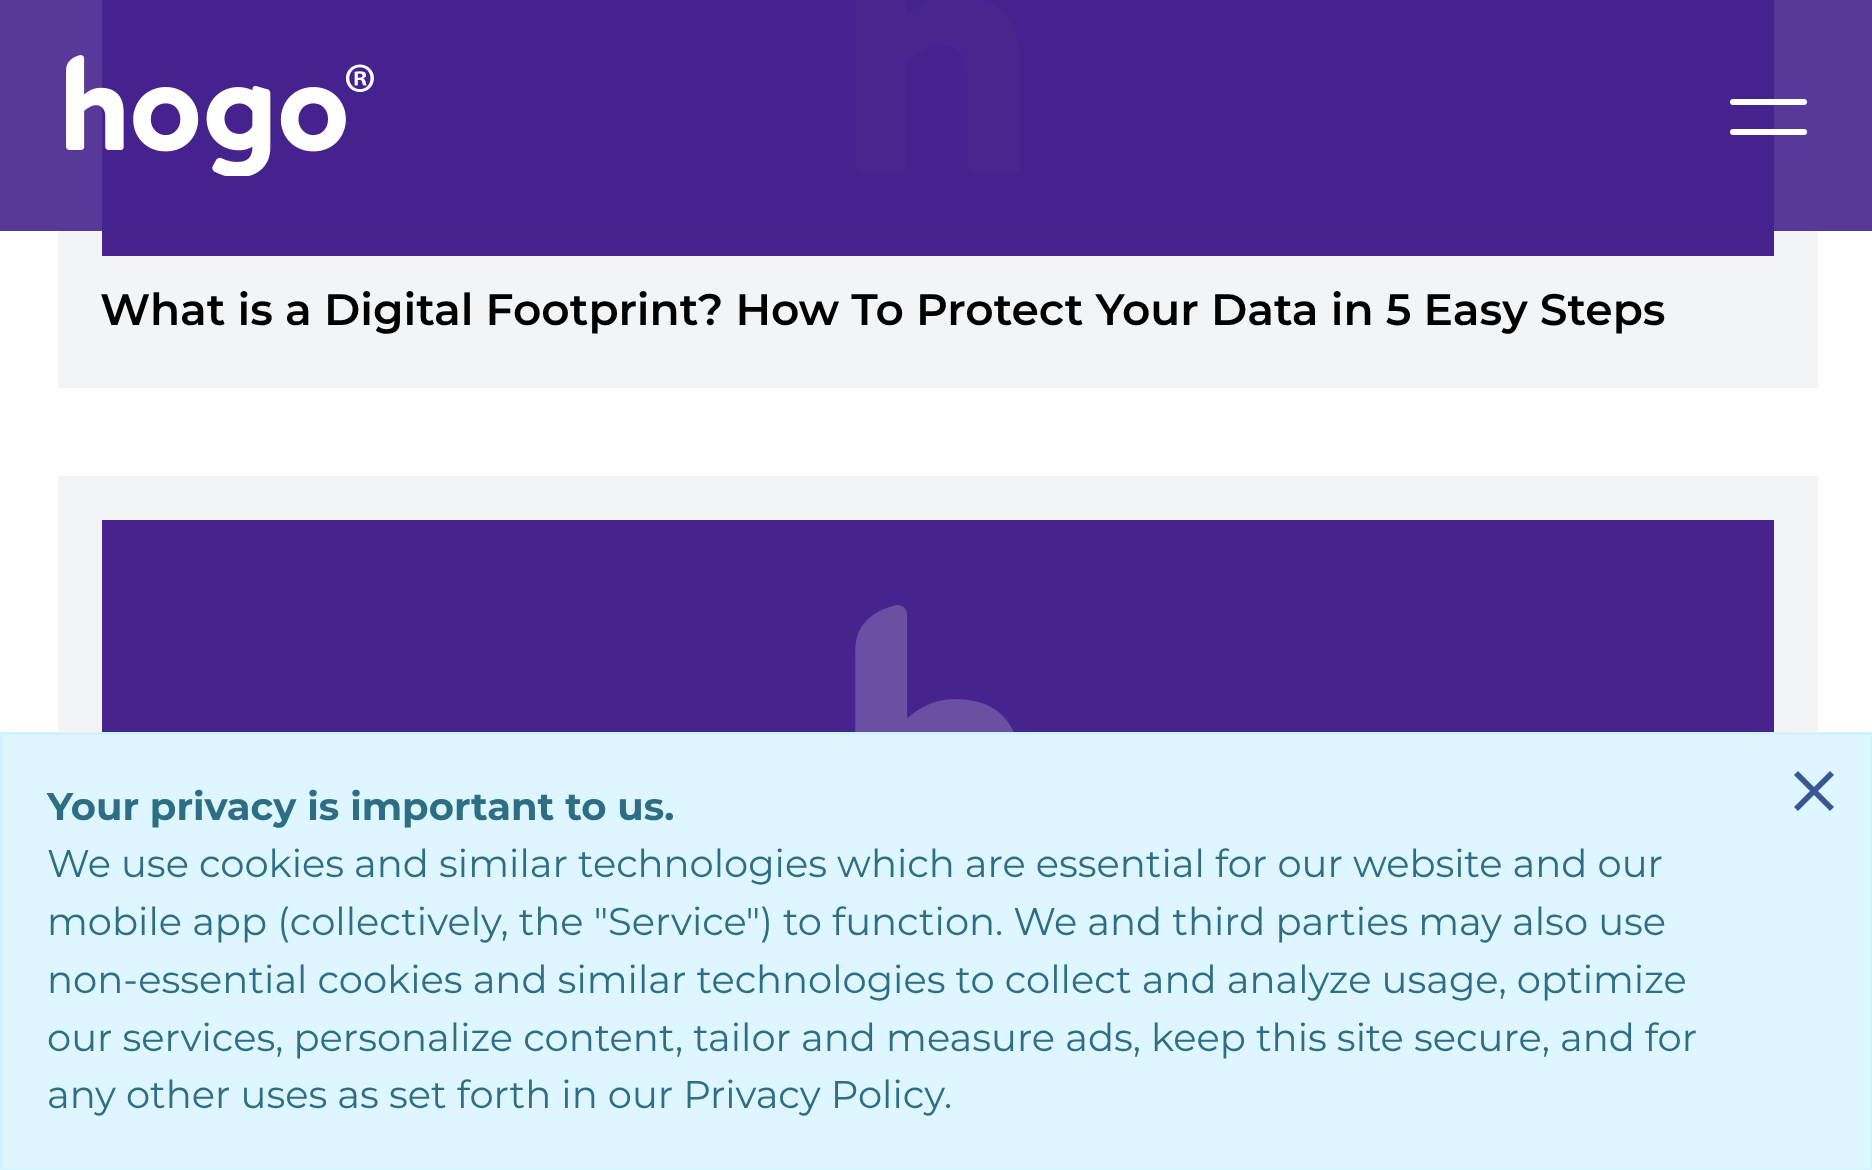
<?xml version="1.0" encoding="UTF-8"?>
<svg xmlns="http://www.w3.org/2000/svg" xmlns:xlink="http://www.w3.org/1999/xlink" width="1872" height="1170">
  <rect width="100%" height="100%" fill="#ffffff" />
  <rect width="1872" height="231" fill="#583898" />
  <rect x="102" width="1672" height="231" fill="#45228d" />
  <image x="66" y="55" width="308" height="121" xlink:href="image1.png" />
  <rect x="1730" y="99" width="77" height="6" rx="3" fill="#ffffff" />
  <rect x="1730" y="129" width="77" height="6" rx="3" fill="#ffffff" />
  <rect x="58" y="231" width="1760" height="157" fill="#f3f4f6" />
  <rect x="102" y="231" width="1672" height="25" fill="#46238d" />
  <image x="855" y="0" width="165" height="173" xlink:href="image2.png" />
  <rect x="58" y="476" width="1760" height="256" fill="#f3f4f6" />
  <rect x="102" y="520" width="1672" height="212" fill="#46238d" />
  <image x="855" y="605" width="159" height="127" xlink:href="image3.png" />
  <rect x="1.5" y="733.5" width="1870" height="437" fill="#ddf6ff" stroke="#d0f3ff" stroke-width="3" />
  <path d="M 1834 775 l -4 -4 l -16 16 l -16 -16 l -4 4 l 16 16 l -16 16 l 4 4 l 16 -16 l 16 16 l 4 -4 l -16 -16 z" fill="#3a5795" />
  <text x="100" y="325" style="font-family: Montserrat; font-size: 44px; font-weight: 600; fill: #000000">What is a Digital Footprint? How To Protect Your Data in 5 Easy Steps</text>
  <text x="47" y="820" style="font-family: Montserrat; font-size: 38.5px; font-weight: bold; fill: #2d6e85">Your privacy is important to us.</text>
  <text x="47" y="877" style="font-family: Montserrat; font-size: 38.5px; fill: #2d6e85">We use cookies and similar technologies which are essential for our website and our</text>
  <text x="47" y="935" style="font-family: Montserrat; font-size: 38.5px; fill: #2d6e85">mobile app (collectively, the "Service") to function. We and third parties may also use</text>
  <text x="47" y="993" style="font-family: Montserrat; font-size: 38.5px; fill: #2d6e85">non-essential cookies and similar technologies to collect and analyze usage, optimize</text>
  <text x="47" y="1051" style="font-family: Montserrat; font-size: 38.5px; fill: #2d6e85">our services, personalize content, tailor and measure ads, keep this site secure, and for</text>
  <text x="47" y="1108" style="font-family: Montserrat; font-size: 38.5px; fill: #2d6e85">any other uses as set forth in our Privacy Policy.</text>
</svg>
